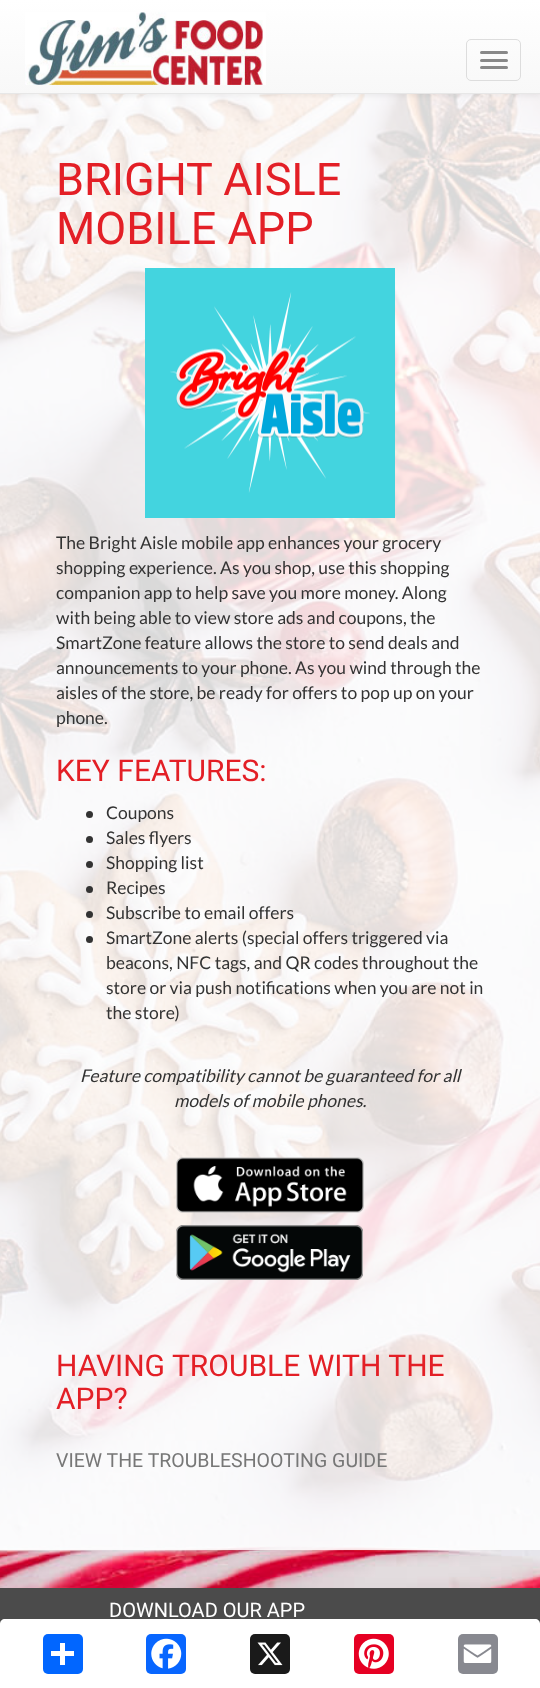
<?xml version="1.0" encoding="UTF-8"?>
<svg xmlns="http://www.w3.org/2000/svg" xmlns:xlink="http://www.w3.org/1999/xlink" width="540" height="1688">
  <defs>
    <linearGradient id="g1" gradientUnits="userSpaceOnUse" x1="270" y1="0" x2="270" y2="93"><stop offset="0" stop-color="#ffffff" /><stop offset="1" stop-color="#f8f8f8" /></linearGradient>
  </defs>
  <rect width="100%" height="100%" fill="#ffffff" />
  <image x="0" y="94" width="540" height="1494" xlink:href="image1.png" />
  <rect y="1" width="540" height="94" fill="#000000" fill-opacity="0.07" filter="blur(3px)" />
  <rect width="540" height="93" fill="url(#g1)" />
  <rect y="93" width="540" height="1" fill="#e7e7e7" />
  <image x="25" y="12" width="241" height="73" xlink:href="image2.png" />
  <rect x="466.5" y="39.5" width="54" height="41" rx="4.5" fill="none" stroke="#dddddd" />
  <rect x="480" y="51" width="28" height="3" rx="1.5" fill="#888888" />
  <rect x="480" y="59" width="28" height="3" rx="1.5" fill="#888888" />
  <rect x="480" y="66" width="28" height="3" rx="1.5" fill="#888888" />
  <rect x="145" y="268" width="250" height="250" fill="#43d4df" />
  <image x="170" y="292" width="200" height="201" xlink:href="image3.png" />
  <circle cx="89.5" cy="814.5" r="3.5" fill="#333333" />
  <circle cx="89.5" cy="839.5" r="3.5" fill="#333333" />
  <circle cx="89.5" cy="864.5" r="3.5" fill="#333333" />
  <circle cx="89.5" cy="889.5" r="3.5" fill="#333333" />
  <circle cx="89.5" cy="914.5" r="3.5" fill="#333333" />
  <circle cx="89.5" cy="939.5" r="3.5" fill="#333333" />
  <image x="176" y="1157" width="188" height="56" xlink:href="image4.png" />
  <image x="176" y="1225" width="187" height="55" xlink:href="image5.png" />
  <rect y="1588" width="540" height="36" fill="#4b4b4b" />
  <path d="M 5 1619 h 530 c 3 0 5 2 5 5 v 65 h -540 v -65 c 0 -3 2 -5 5 -5 z" fill="#ffffff" />
  <rect x="43" y="1634" width="40" height="40" rx="5" fill="#0166ff" />
  <rect x="60" y="1643" width="5" height="22" fill="#ffffff" />
  <rect x="51" y="1651" width="23" height="5" fill="#ffffff" />
  <rect x="146" y="1634" width="40" height="40" rx="5" fill="#0866ff" />
  <image x="151" y="1638" width="31" height="31" xlink:href="image6.png" />
  <rect x="250" y="1634" width="40" height="40" rx="5" fill="#1a1a1a" />
  <image x="257" y="1642" width="26" height="24" xlink:href="image7.png" />
  <rect x="354" y="1634" width="40" height="40" rx="5" fill="#e60023" />
  <image x="358" y="1638" width="31" height="31" xlink:href="image8.png" />
  <rect x="458" y="1634" width="40" height="40" rx="5" fill="#888990" />
  <image x="463" y="1644" width="29" height="19" xlink:href="image9.png" />
  <text x="56" y="195" style="font-family: Roboto; font-size: 45px; fill: #e31f26">BRIGHT AISLE</text>
  <text x="56" y="244" style="font-family: Roboto; font-size: 45px; fill: #e31f26">MOBILE APP</text>
  <text x="56" y="549" style="font-family: Lato; font-size: 17.5px; fill: #333333">The Bright Aisle mobile app enhances your grocery</text>
  <text x="56" y="574" style="font-family: Lato; font-size: 17.5px; fill: #333333">shopping experience. As you shop, use this shopping</text>
  <text x="56" y="599" style="font-family: Lato; font-size: 17.5px; fill: #333333">companion app to help save you more money. Along</text>
  <text x="56" y="624" style="font-family: Lato; font-size: 17.5px; fill: #333333">with being able to view store ads and coupons, the</text>
  <text x="56" y="649" style="font-family: Lato; font-size: 17.5px; fill: #333333">SmartZone feature allows the store to send deals and</text>
  <text x="56" y="674" style="font-family: Lato; font-size: 17.5px; fill: #333333">announcements to your phone. As you wind through the</text>
  <text x="56" y="699" style="font-family: Lato; font-size: 17.5px; fill: #333333">aisles of the store, be ready for offers to pop up on your</text>
  <text x="56" y="724" style="font-family: Lato; font-size: 17.5px; fill: #333333">phone.</text>
  <text x="56" y="781" style="font-family: Roboto; font-size: 30px; fill: #e31f26">KEY FEATURES:</text>
  <text x="106" y="819" style="font-family: Lato; font-size: 17.5px; fill: #333333">Coupons</text>
  <text x="106" y="844" style="font-family: Lato; font-size: 17.5px; fill: #333333">Sales flyers</text>
  <text x="106" y="869" style="font-family: Lato; font-size: 17.5px; fill: #333333">Shopping list</text>
  <text x="106" y="894" style="font-family: Lato; font-size: 17.5px; fill: #333333">Recipes</text>
  <text x="106" y="919" style="font-family: Lato; font-size: 17.5px; fill: #333333">Subscribe to email offers</text>
  <text x="106" y="944" style="font-family: Lato; font-size: 17.5px; fill: #333333">SmartZone alerts (special offers triggered via</text>
  <text x="106" y="969" style="font-family: Lato; font-size: 17.5px; fill: #333333">beacons, NFC tags, and QR codes throughout the</text>
  <text x="106" y="994" style="font-family: Lato; font-size: 17.5px; fill: #333333">store or via push notifications when you are not in</text>
  <text x="106" y="1019" style="font-family: Lato; font-size: 17.5px; fill: #333333">the store)</text>
  <text x="80" y="1082" style="font-family: Lato; font-size: 17.5px; font-style: italic; fill: #333333">Feature compatibility cannot be guaranteed for all</text>
  <text x="174" y="1107" style="font-family: Lato; font-size: 17.5px; font-style: italic; fill: #333333">models of mobile phones.</text>
  <text x="56" y="1376" style="font-family: Roboto; font-size: 30px; fill: #e31f26">HAVING TROUBLE WITH THE</text>
  <text x="56" y="1409" style="font-family: Roboto; font-size: 30px; fill: #e31f26">APP?</text>
  <text x="56" y="1467" style="font-family: Roboto; font-size: 19.5px; fill: #777777">VIEW THE TROUBLESHOOTING GUIDE</text>
  <text x="109" y="1617" style="font-family: Roboto; font-size: 20px; fill: #ffffff">DOWNLOAD OUR APP</text>
</svg>
